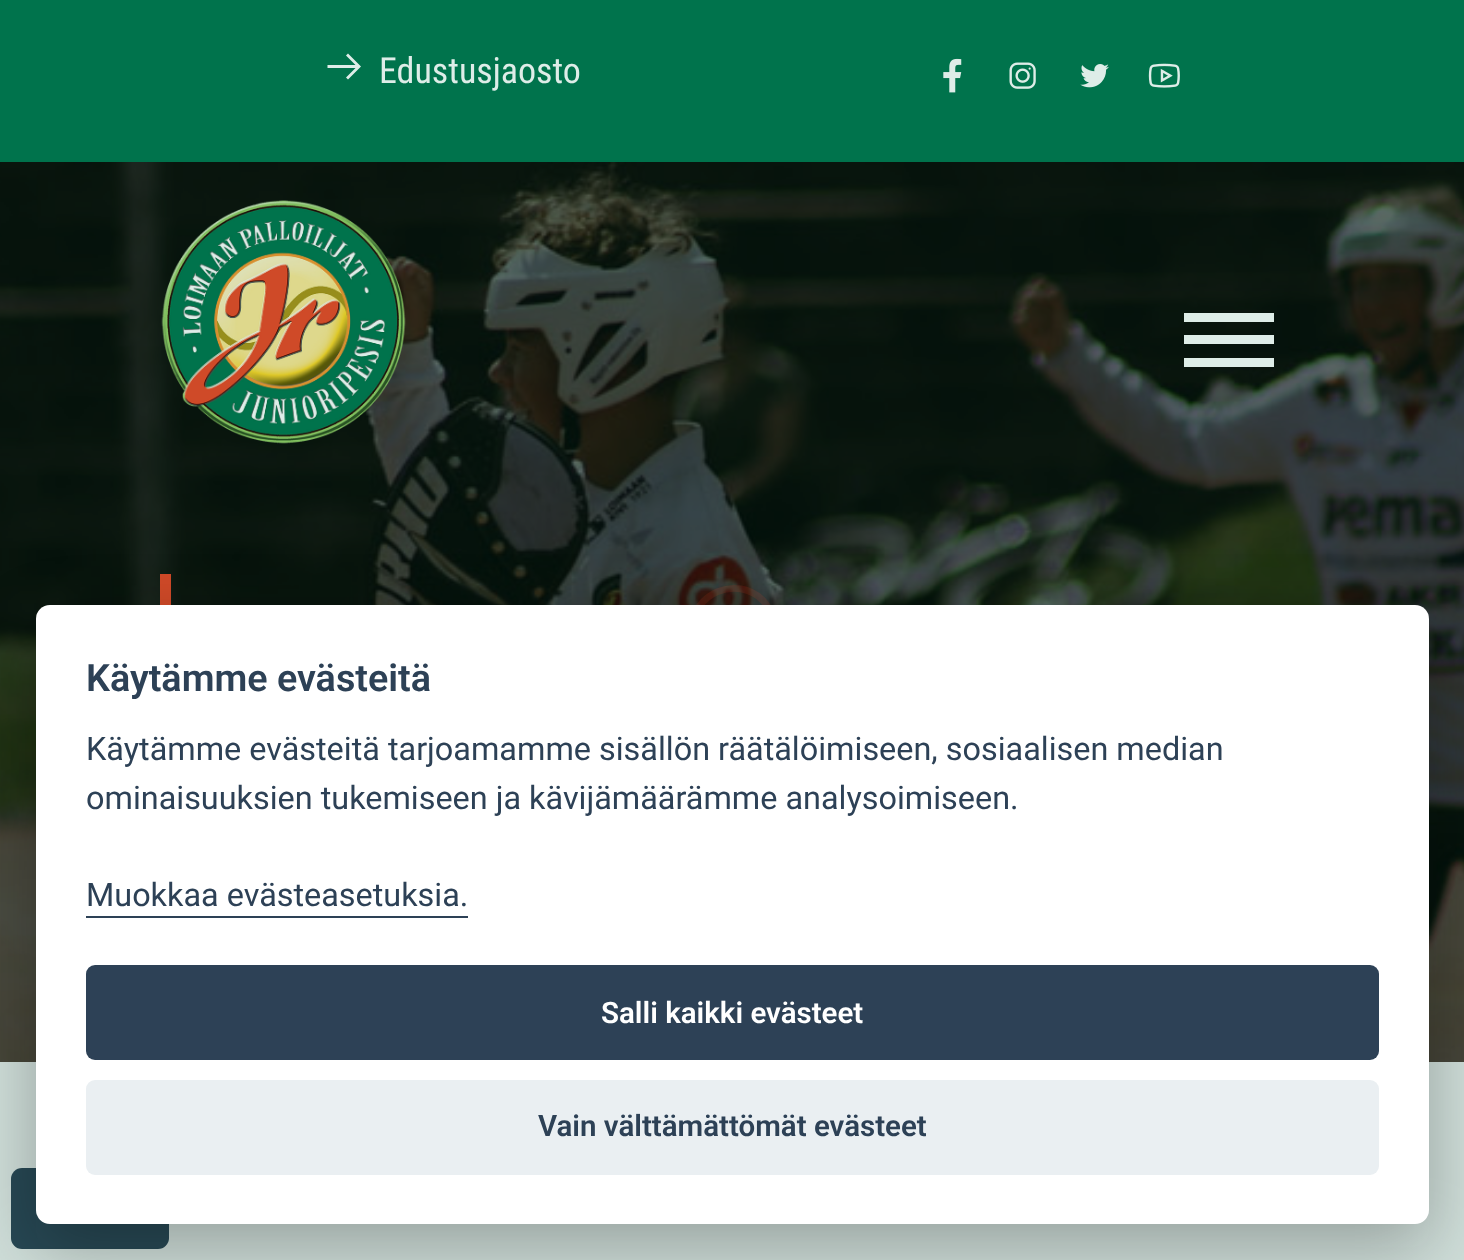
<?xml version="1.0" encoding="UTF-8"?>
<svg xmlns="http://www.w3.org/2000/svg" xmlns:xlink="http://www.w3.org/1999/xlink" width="1464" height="1260">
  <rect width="100%" height="100%" fill="#cfded9" />
  <rect width="1464" height="162" fill="#00734c" />
  <path d="M 348 53.5 l -2 2 l 9.5 9.5 h -28 v 3 h 28 l -9.5 9.5 l 2 2 l 13 -13 z" fill="#deede8" />
  <image x="943" y="58" width="19" height="35" xlink:href="image1.png" />
  <image x="1009" y="62" width="27" height="27" xlink:href="image2.png" />
  <image x="1080" y="64" width="29" height="24" xlink:href="image3.png" />
  <image x="1148" y="63" width="32" height="25" xlink:href="image4.png" />
  <image x="0" y="162" width="1464" height="900" xlink:href="image5.png" />
  <rect x="160" y="574" width="11" height="31" fill="#d04a28" />
  <image x="161" y="200" width="245" height="244" xlink:href="image6.png" />
  <rect x="1184" y="313" width="90" height="9" fill="#deede8" />
  <rect x="1184" y="335" width="90" height="9" fill="#deede8" />
  <rect x="1184" y="358" width="90" height="9" fill="#deede8" />
  <path d="M 704 659.5 c -7.5 -8 -12 -18.5 -12 -29.5 c 0 -37 45 -55.5 71 -29.5 c 5.5 6 9.5 13.5 11.5 21.5 c 2.5 13.5 -2 27.5 -11.5 37.5" fill="none" stroke="#ef4423" stroke-opacity="0.13" stroke-width="6.8" />
  <rect x="11" y="1168" width="158" height="81" rx="11" fill="#274854" />
  <rect x="36" y="628" width="1393" height="619" rx="14" fill="#020203" fill-opacity="0.28" filter="blur(34px)" />
  <rect x="36" y="605" width="1393" height="619" rx="14" fill="#ffffff" />
  <rect x="86" y="916" width="382" height="2" fill="#2d4156" />
  <rect x="86" y="965" width="1293" height="95" rx="9" fill="#2d4156" />
  <rect x="86" y="1080" width="1293" height="95" rx="9" fill="#eaeff2" />
  <text x="379" y="83" style="font-family: Roboto Condensed; font-size: 36px; fill: #deede8">Edustusjaosto</text>
  <text x="86" y="691" style="font-family: Roboto; font-size: 37.75px; font-weight: 600; fill: #2d4156">Käytämme evästeitä</text>
  <text x="86" y="760" style="font-family: Roboto; font-size: 32.4px; fill: #2d4156">Käytämme evästeitä tarjoamamme sisällön räätälöimiseen, sosiaalisen median</text>
  <text x="86" y="809" style="font-family: Roboto; font-size: 32.4px; fill: #2d4156">ominaisuuksien tukemiseen ja kävijämäärämme analysoimiseen.</text>
  <text x="86" y="906" style="font-family: Roboto; font-size: 32.4px; fill: #2d4156">Muokkaa evästeasetuksia.</text>
  <text x="601" y="1023" style="font-family: Roboto; font-size: 29.5px; font-weight: 600; fill: #ffffff">Salli kaikki evästeet</text>
  <text x="538" y="1136" style="font-family: Roboto; font-size: 29.5px; font-weight: 600; fill: #2d4156">Vain välttämättömät evästeet</text>
</svg>
